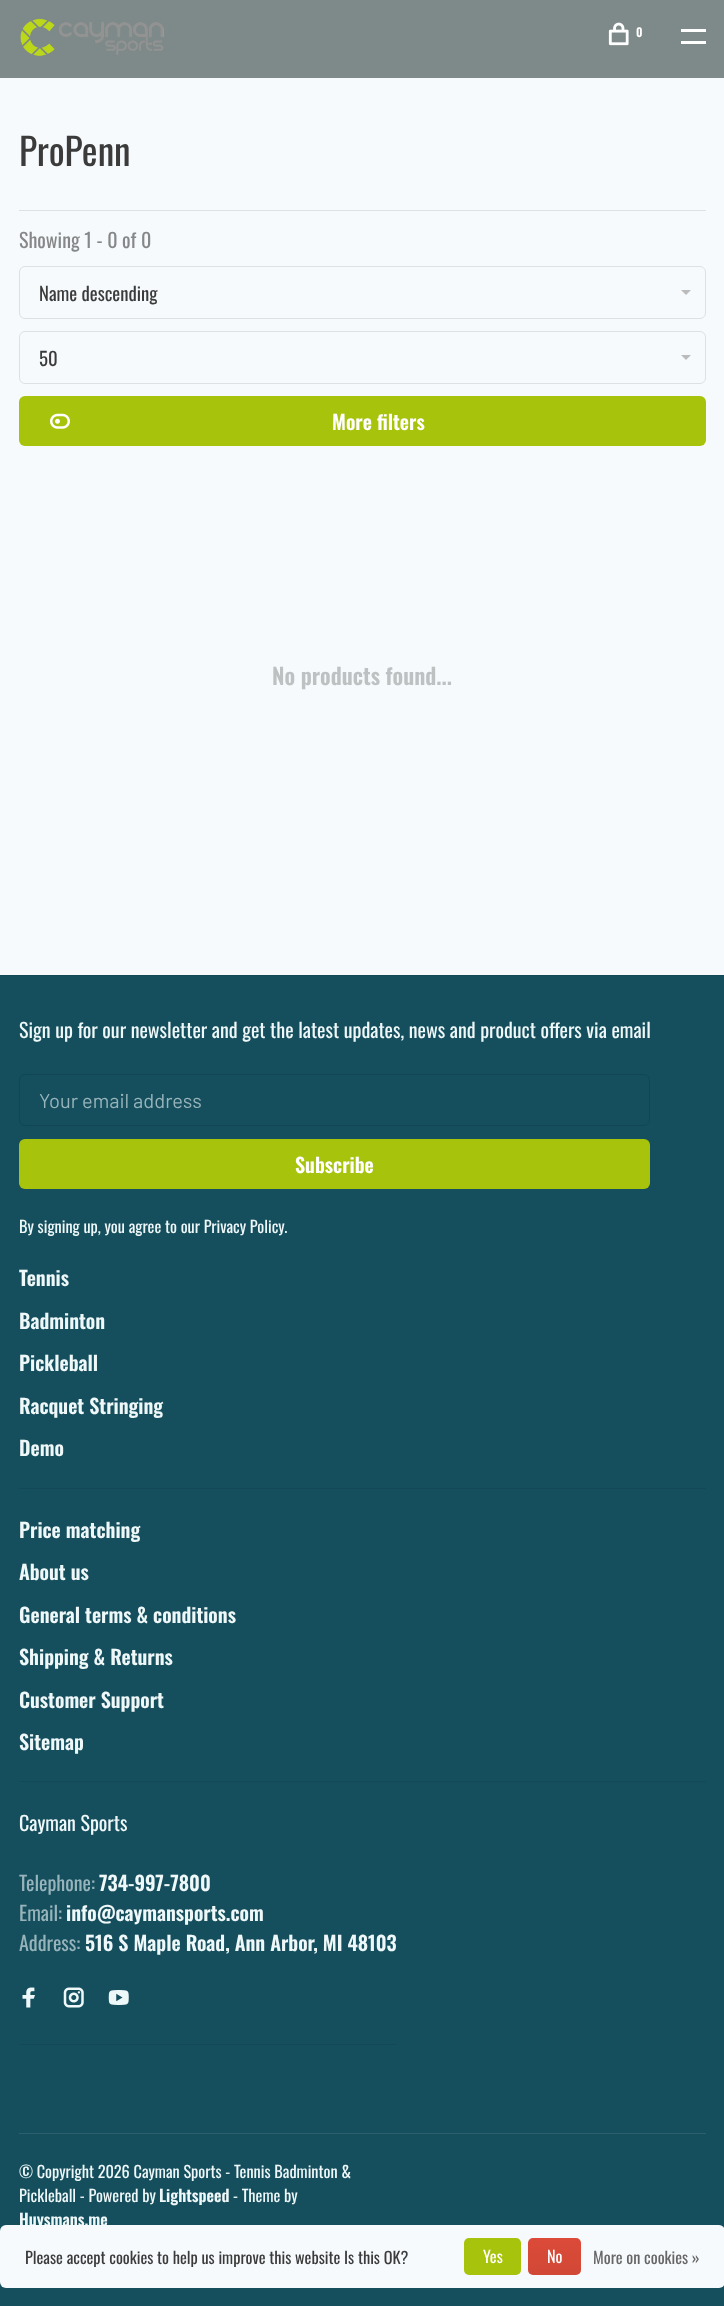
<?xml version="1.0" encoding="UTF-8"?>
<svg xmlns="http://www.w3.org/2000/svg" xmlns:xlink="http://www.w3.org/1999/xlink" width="724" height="2306">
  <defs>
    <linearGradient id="g1" gradientUnits="userSpaceOnUse" x1="554" y1="2238" x2="554" y2="2275"><stop offset="0" stop-color="#dc4a38" /><stop offset="1" stop-color="#d14836" /></linearGradient>
  </defs>
  <rect width="100%" height="100%" fill="#f6fafc" />
  <rect width="724" height="78" fill="#7e8a89" />
  <image x="20" y="18" width="144" height="38" xlink:href="image1.png" />
  <image x="608" y="22" width="21" height="24" xlink:href="image2.png" />
  <rect x="681" y="29" width="25" height="3" fill="#ffffff" />
  <rect x="681" y="41" width="25" height="3" fill="#ffffff" />
  <rect x="19" y="210" width="687" height="1" fill="#dde1e3" />
  <rect x="19.5" y="266.5" width="686" height="52" rx="5.5" fill="none" stroke="#dde1e3" />
  <path d="M 681 290 h 10 l -5 5 z" fill="#bbbbbb" />
  <rect x="19.5" y="331.5" width="686" height="52" rx="5.5" fill="none" stroke="#dde1e3" />
  <path d="M 681 355 h 10 l -5 5 z" fill="#bbbbbb" />
  <rect x="19" y="396" width="687" height="50" rx="6" fill="#a8c30b" />
  <image x="50" y="413" width="20" height="16" xlink:href="image3.png" />
  <rect y="976" width="724" height="1330" fill="#154e5d" />
  <rect y="975" width="724" height="1" fill="#134856" />
  <rect x="19.5" y="1074.5" width="630" height="51" rx="5.5" fill="none" stroke="#134654" />
  <rect x="19" y="1139" width="631" height="50" rx="6" fill="#a8c30b" />
  <rect x="19" y="1488" width="687" height="1" fill="#134856" />
  <rect x="19" y="1781" width="687" height="1" fill="#134856" />
  <rect x="19" y="2044" width="377" height="1" fill="#134856" />
  <image x="22" y="1987" width="13" height="21" xlink:href="image4.png" />
  <image x="63" y="1987" width="21" height="21" xlink:href="image5.png" />
  <image x="108" y="1990" width="21" height="15" xlink:href="image6.png" />
  <rect x="19" y="2133" width="687" height="1" fill="#2c606d" />
  <text x="636" y="37" style="font-family: Oswald; font-size: 12px; font-weight: 600; fill: #ffffff">0</text>
  <text x="19" y="166" style="font-family: Oswald; font-size: 37.5px; fill: #3b3b3b">ProPenn</text>
  <text x="19" y="248" style="font-family: Oswald; font-size: 20px; fill: #868788">Showing 1 - 0 of 0</text>
  <text x="39" y="301" style="font-family: Oswald; font-size: 18.75px; fill: #3b3b3b">Name descending</text>
  <text x="39" y="366" style="font-family: Oswald; font-size: 18.75px; fill: #3b3b3b">50</text>
  <text x="332" y="430" style="font-family: Oswald; font-size: 20px; font-weight: 600; fill: #ffffff">More filters</text>
  <text x="272" y="685" style="font-family: Oswald; font-size: 22.5px; font-weight: 600; fill: #bec1c2">No products found...</text>
  <text x="19" y="1038" style="font-family: Oswald; font-size: 20px; fill: #eff8f9">Sign up for our newsletter and get the latest updates, news and product offers via email</text>
  <text x="39" y="1108" style="font-family: Barlow; font-size: 20px; fill: #98b4bb">Your email address</text>
  <text x="295" y="1173" style="font-family: Oswald; font-size: 20px; font-weight: 600; fill: #ffffff">Subscribe</text>
  <text x="19" y="1233" style="font-family: Oswald; font-size: 16.25px; fill: #eff8f9">By signing up, you agree to our Privacy Policy.</text>
  <text x="19" y="1286" style="font-family: Oswald; font-size: 20px; font-weight: 600; fill: #eff8f9">Tennis</text>
  <text x="19" y="1329" style="font-family: Oswald; font-size: 20px; font-weight: 600; fill: #eff8f9">Badminton</text>
  <text x="19" y="1371" style="font-family: Oswald; font-size: 20px; font-weight: 600; fill: #eff8f9">Pickleball</text>
  <text x="19" y="1414" style="font-family: Oswald; font-size: 20px; font-weight: 600; fill: #eff8f9">Racquet Stringing</text>
  <text x="19" y="1456" style="font-family: Oswald; font-size: 20px; font-weight: 600; fill: #eff8f9">Demo</text>
  <text x="19" y="1538" style="font-family: Oswald; font-size: 20px; font-weight: 600; fill: #eff8f9">Price matching</text>
  <text x="19" y="1580" style="font-family: Oswald; font-size: 20px; font-weight: 600; fill: #eff8f9">About us</text>
  <text x="19" y="1623" style="font-family: Oswald; font-size: 20px; font-weight: 600; fill: #eff8f9">General terms &amp; conditions</text>
  <text x="19" y="1665" style="font-family: Oswald; font-size: 20px; font-weight: 600; fill: #eff8f9">Shipping &amp; Returns</text>
  <text x="19" y="1708" style="font-family: Oswald; font-size: 20px; font-weight: 600; fill: #eff8f9">Customer Support</text>
  <text x="19" y="1750" style="font-family: Oswald; font-size: 20px; font-weight: 600; fill: #eff8f9">Sitemap</text>
  <text x="19" y="1831" style="font-family: Oswald; font-size: 20px; fill: #eff8f9">Cayman Sports</text>
  <text x="19" y="1891" style="font-family: Oswald; font-size: 20px; fill: #98b4bb">Telephone:</text>
  <text x="99" y="1891" style="font-family: Oswald; font-size: 20px; font-weight: 600; fill: #eff8f9">734-997-7800</text>
  <text x="19" y="1921" style="font-family: Oswald; font-size: 20px; fill: #98b4bb">Email:</text>
  <text x="66" y="1921" style="font-family: Oswald; font-size: 20px; font-weight: 600; fill: #eff8f9">info@caymansports.com</text>
  <text x="19" y="1951" style="font-family: Oswald; font-size: 20px; fill: #98b4bb">Address:</text>
  <text x="85" y="1951" style="font-family: Oswald; font-size: 20px; font-weight: 600; fill: #eff8f9">516 S Maple Road, Ann Arbor, MI 48103</text>
  <text x="19" y="2178" style="font-family: Oswald; font-size: 16.25px; fill: #eff8f9">© Copyright 2026 Cayman Sports - Tennis Badminton &amp;</text>
  <text x="19" y="2202" style="font-family: Oswald; font-size: 16.25px; fill: #eff8f9">Pickleball - Powered by</text>
  <text x="159" y="2202" style="font-family: Oswald; font-size: 16.25px; font-weight: 600; fill: #eff8f9">Lightspeed</text>
  <text x="233" y="2202" style="font-family: Oswald; font-size: 16.25px; fill: #eff8f9">- Theme by</text>
  <text x="19" y="2226" style="font-family: Oswald; font-size: 16.25px; font-weight: 600; fill: #eff8f9">Huysmans.me</text>
  <rect y="2225" width="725" height="63" rx="6" fill="#f6fafc" />
  <text x="25" y="2264" style="font-family: Oswald; font-size: 16.25px; fill: #3b3b3b">Please accept cookies to help us improve this website Is this OK?</text>
  <rect x="464" y="2238" width="57" height="37" rx="5" fill="#a8c30b" />
  <text x="483" y="2263" style="font-family: Oswald; font-size: 16.25px; fill: #ffffff">Yes</text>
  <rect x="528" y="2238" width="53" height="37" rx="5" fill="url(#g1)" />
  <text x="547" y="2263" style="font-family: Oswald; font-size: 16.25px; fill: #ffffff">No</text>
  <text x="593" y="2264" style="font-family: Oswald; font-size: 16.25px; fill: #666666">More on cookies »</text>
</svg>
